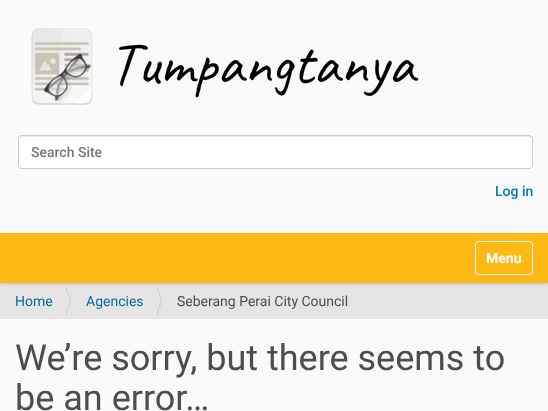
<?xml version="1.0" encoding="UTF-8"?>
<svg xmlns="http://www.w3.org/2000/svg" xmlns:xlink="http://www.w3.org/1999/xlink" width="548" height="411">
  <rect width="100%" height="100%" fill="#fafafa" />
  <image x="31" y="28" width="388" height="77" xlink:href="image1.png" />
  <rect x="18" y="135" width="515" height="34" rx="4" fill="#ffffff" />
  <path d="M 22 137 h 507 c 2 0 3 1 3 3 v -2 l -2 -2 h -508 c -2 0 -3 2 -3 4 c 0 -2 1 -3 3 -3 z" fill="#ececec" />
  <rect x="18.5" y="135.5" width="514" height="33" rx="3.5" fill="none" stroke="#cccccc" />
  <rect y="283" width="548" height="36" fill="#e6e4e4" />
  <rect y="234" width="548" height="50" fill="#000000" fill-opacity="0.17" filter="blur(1.5px)" />
  <rect y="233" width="548" height="50" fill="#fdba15" />
  <rect x="475.5" y="241.5" width="57" height="33" rx="3.5" fill="none" stroke="#ffffff" />
  <path d="M 66 316 v -30 l 5 15 z" fill="#cccccc" />
  <path d="M 65 316 v -30 l 5 15 z" fill="#e6e4e4" />
  <path d="M 157 316 v -30 l 5 15 z" fill="#cccccc" />
  <path d="M 156 316 v -30 l 5 15 z" fill="#e6e4e4" />
  <text x="31" y="157" style="font-family: Roboto; font-size: 14px; font-weight: 500; fill: #777777">Search Site</text>
  <text x="495" y="196" style="font-family: Roboto; font-size: 14px; font-weight: 500; fill: #007bb1">Log in</text>
  <text x="486" y="263" style="font-family: Roboto; font-size: 14px; font-weight: bold; fill: #ffffff">Menu</text>
  <text x="15" y="306" style="font-family: Roboto; font-size: 14px; fill: #086ca3">Home</text>
  <text x="86" y="306" style="font-family: Roboto; font-size: 14px; fill: #086ca3">Agencies</text>
  <text x="177" y="306" style="font-family: Roboto; font-size: 14px; fill: #4d4d4d">Seberang Perai City Council</text>
  <text x="15" y="370" style="font-family: Roboto; font-size: 36px; fill: #4d4d4d">We’re sorry, but there seems to</text>
  <text x="15" y="410" style="font-family: Roboto; font-size: 36px; fill: #4d4d4d">be an error…</text>
</svg>
